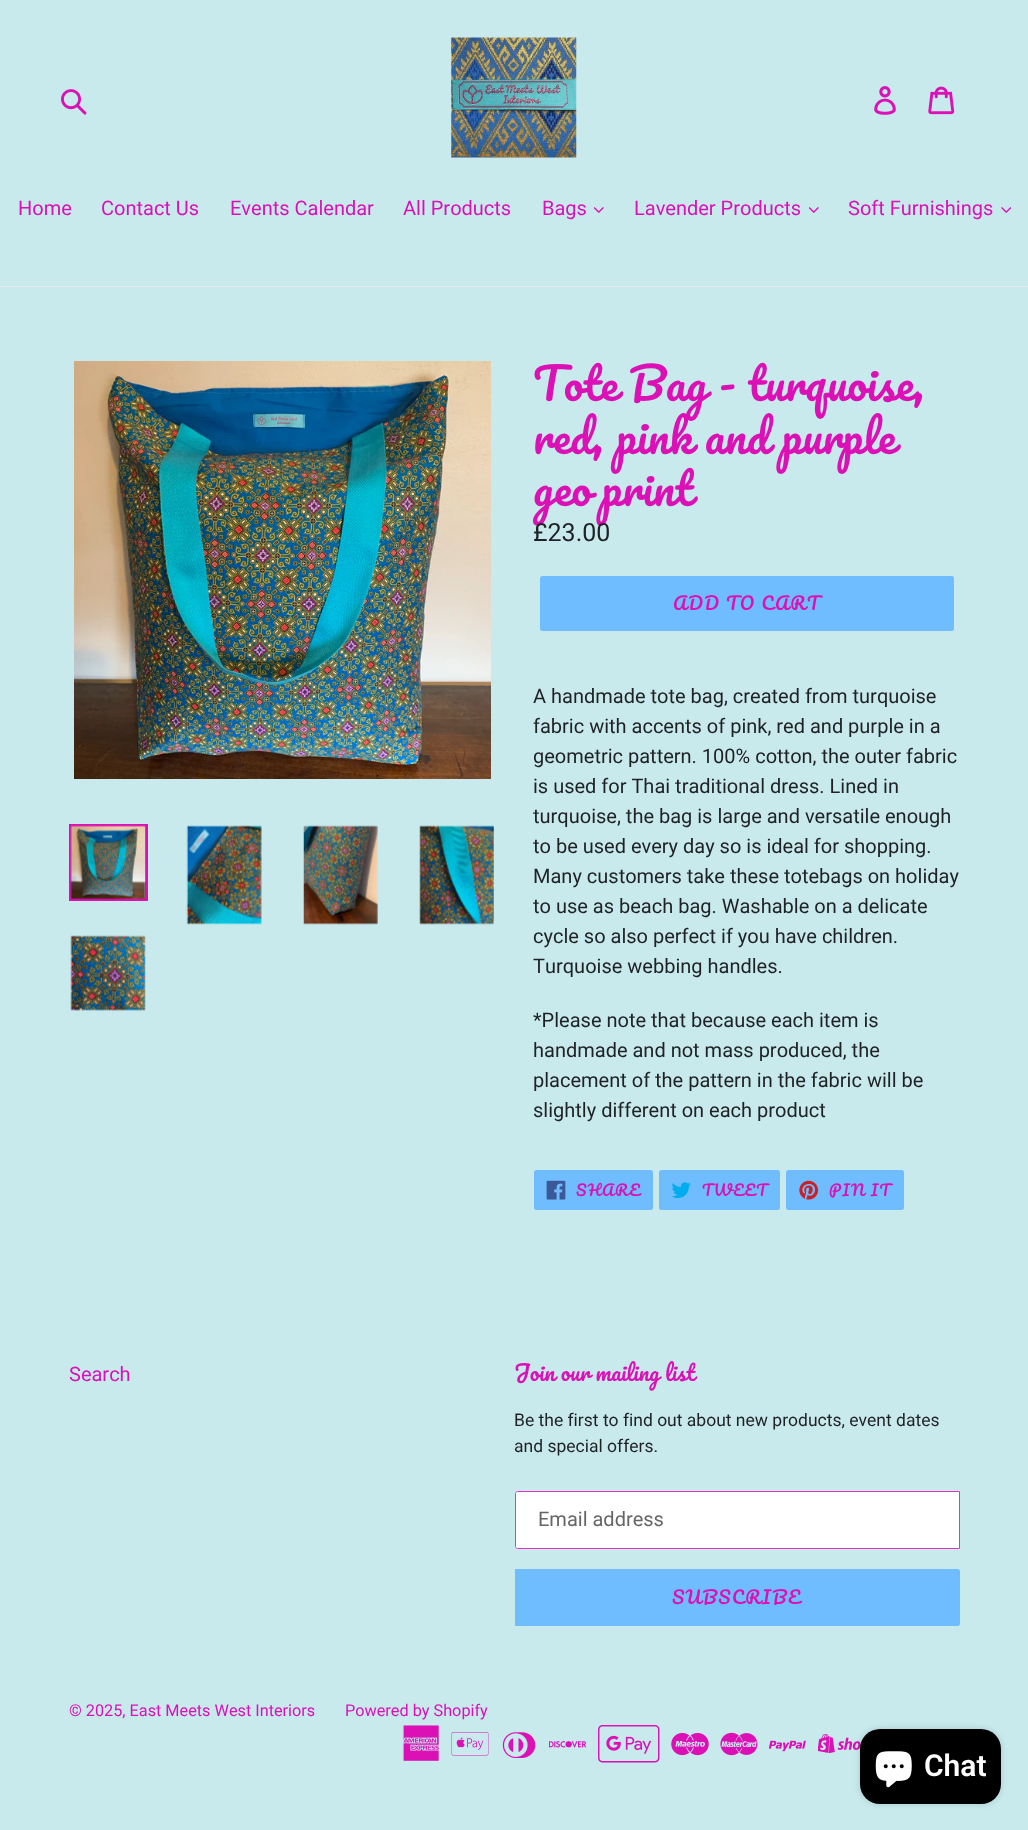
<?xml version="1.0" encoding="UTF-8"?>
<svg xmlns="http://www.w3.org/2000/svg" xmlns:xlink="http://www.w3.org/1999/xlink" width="1028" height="1830">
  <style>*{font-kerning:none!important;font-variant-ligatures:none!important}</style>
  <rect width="100%" height="100%" fill="#c8eaed" />
  <image x="61" y="89" width="26" height="26" xlink:href="image1.png" />
  <image x="451" y="37" width="126" height="121" xlink:href="image2.png" />
  <image x="874" y="86" width="22" height="29" xlink:href="image3.png" />
  <image x="928" y="86" width="27" height="29" xlink:href="image4.png" />
  <rect y="286" width="1028" height="1" fill="#e8e9eb" />
  <image x="594" y="207" width="10" height="6" xlink:href="image5.png" />
  <image x="809" y="207" width="10" height="6" xlink:href="image5.png" />
  <image x="1001" y="207" width="10" height="6" xlink:href="image6.png" />
  <image x="74" y="361" width="417" height="418" xlink:href="image7.png" />
  <rect x="70.5" y="825.5" width="76" height="74" fill="none" stroke="#db11b6" stroke-width="3" />
  <image x="70" y="825" width="76" height="75" xlink:href="image8.png" />
  <image x="186" y="825" width="76" height="100" xlink:href="image9.png" />
  <image x="303" y="825" width="75" height="100" xlink:href="image10.png" />
  <image x="419" y="825" width="75" height="100" xlink:href="image11.png" />
  <image x="70" y="935" width="76" height="76" xlink:href="image12.png" />
  <rect x="540" y="576" width="414" height="55" rx="2.5" fill="#6fbcff" />
  <rect x="534" y="1170" width="119" height="40" rx="2.5" fill="#6fbcff" />
  <image x="546" y="1180" width="20" height="20" xlink:href="image13.png" />
  <rect x="659" y="1170" width="121" height="40" rx="2.5" fill="#6fbcff" />
  <image x="671" y="1182" width="20" height="16" xlink:href="image14.png" />
  <rect x="786" y="1170" width="118" height="40" rx="2.5" fill="#6fbcff" />
  <image x="799" y="1180" width="20" height="20" xlink:href="image15.png" />
  <path d="M 517.5 1491 h 442.5 v 58 h -442.5 c -1.5 0 -2.5 -1 -2.5 -2.5 v -53 c 0 -1.5 1 -2.5 2.5 -2.5 z" fill="#ffffff" />
  <path d="M 517.5 1491.5 h 442 v 57 h -442 c -1 0 -2 -1 -2 -2 v -53 c 0 -1 1 -2 2 -2 z" fill="none" stroke="#db11b6" stroke-opacity="0.85" />
  <path d="M 515 1569 h 442.5 c 1.5 0 2.5 1 2.5 2.5 v 52 c 0 1.5 -1 2.5 -2.5 2.5 h -442.5 z" fill="#6fbcff" />
  <image x="403" y="1725" width="36" height="36" xlink:href="image16.png" />
  <image x="451" y="1732" width="38" height="24" xlink:href="image17.png" />
  <image x="502" y="1732" width="34" height="26" xlink:href="image18.png" />
  <image x="549" y="1741" width="37" height="7" xlink:href="image19.png" />
  <image x="598" y="1725" width="62" height="38" xlink:href="image20.png" />
  <image x="671" y="1732" width="38" height="24" xlink:href="image21.png" />
  <image x="720" y="1732" width="38" height="24" xlink:href="image22.png" />
  <image x="769" y="1740" width="37" height="12" xlink:href="image23.png" />
  <image x="818" y="1734" width="43" height="20" xlink:href="image24.png" />
  <rect x="860" y="1729" width="141" height="75" rx="20" fill="#000000" fill-opacity="0.15" filter="blur(3px)" />
  <rect x="860" y="1729" width="141" height="75" rx="20" fill="#000000" />
  <image x="875" y="1751" width="37" height="37" xlink:href="image25.png" />
  <text x="18" y="215" style="font-family: Roboto; font-size: 20px; fill: #db11b6">Home</text>
  <text x="101" y="215" style="font-family: Roboto; font-size: 20px; fill: #db11b6">Contact Us</text>
  <text x="230" y="215" style="font-family: Roboto; font-size: 20px; fill: #db11b6">Events Calendar</text>
  <text x="403" y="215" style="font-family: Roboto; font-size: 20px; fill: #db11b6">All Products</text>
  <text x="542" y="215" style="font-family: Roboto; font-size: 20px; fill: #db11b6">Bags</text>
  <text x="634" y="215" style="font-family: Roboto; font-size: 20px; fill: #db11b6">Lavender Products</text>
  <text x="848" y="215" style="font-family: Roboto; font-size: 20px; fill: #db11b6">Soft Furnishings</text>
  <text x="533" y="401" style="font-family: Pacifico; font-size: 43.75px; fill: #db11b6">Tote Bag - turquoise,</text>
  <text x="533" y="454" word-spacing="0.5" style="font-family: Pacifico; font-size: 43.75px; fill: #db11b6">red, pink and purple</text>
  <text x="533" y="506" word-spacing="-1" style="font-family: Pacifico; font-size: 43.75px; fill: #db11b6">geo print</text>
  <text x="533" y="541" style="font-family: Roboto; font-size: 25px; fill: #1f2225">£23.00</text>
  <text x="673" y="610" style="font-family: Pacifico; font-size: 17.5px; letter-spacing: 1.4px; fill: #db11b6">ADD TO CART</text>
  <text x="533" y="703" style="font-family: Roboto; font-size: 20px; fill: #1f2225">A handmade tote bag, created from turquoise</text>
  <text x="533" y="733" style="font-family: Roboto; font-size: 20px; fill: #1f2225">fabric with accents of pink, red and purple in a</text>
  <text x="533" y="763" style="font-family: Roboto; font-size: 20px; fill: #1f2225">geometric pattern. 100% cotton, the outer fabric</text>
  <text x="533" y="793" style="font-family: Roboto; font-size: 20px; fill: #1f2225">is used for Thai traditional dress. Lined in</text>
  <text x="533" y="823" style="font-family: Roboto; font-size: 20px; fill: #1f2225">turquoise, the bag is large and versatile enough</text>
  <text x="533" y="853" style="font-family: Roboto; font-size: 20px; fill: #1f2225">to be used every day so is ideal for shopping.</text>
  <text x="533" y="883" style="font-family: Roboto; font-size: 20px; fill: #1f2225">Many customers take these totebags on holiday</text>
  <text x="533" y="913" style="font-family: Roboto; font-size: 20px; fill: #1f2225">to use as beach bag. Washable on a delicate</text>
  <text x="533" y="943" style="font-family: Roboto; font-size: 20px; fill: #1f2225">cycle so also perfect if you have children.</text>
  <text x="533" y="973" style="font-family: Roboto; font-size: 20px; fill: #1f2225">Turquoise webbing handles.</text>
  <text x="533" y="1027" style="font-family: Roboto; font-size: 20px; fill: #1f2225">*Please note that because each item is</text>
  <text x="533" y="1057" style="font-family: Roboto; font-size: 20px; fill: #1f2225">handmade and not mass produced, the</text>
  <text x="533" y="1087" style="font-family: Roboto; font-size: 20px; fill: #1f2225">placement of the pattern in the fabric will be</text>
  <text x="533" y="1117" style="font-family: Roboto; font-size: 20px; fill: #1f2225">slightly different on each product</text>
  <text x="576" y="1196" style="font-family: Pacifico; font-size: 15px; letter-spacing: 1.25px; fill: #db11b6">SHARE</text>
  <text x="702" y="1196" style="font-family: Pacifico; font-size: 15px; letter-spacing: 1.25px; fill: #db11b6">TWEET</text>
  <text x="829" y="1196" style="font-family: Pacifico; font-size: 15px; letter-spacing: 1.25px; fill: #db11b6">PIN IT</text>
  <text x="69" y="1381" style="font-family: Roboto; font-size: 20px; fill: #db11b6">Search</text>
  <text x="514" y="1381" style="font-family: Pacifico; font-size: 21.25px; fill: #db11b6">Join our mailing list</text>
  <text x="514" y="1426" style="font-family: Roboto; font-size: 17.5px; fill: #1f2225">Be the first to find out about new products, event dates</text>
  <text x="514" y="1452" style="font-family: Roboto; font-size: 17.5px; fill: #1f2225">and special offers.</text>
  <text x="538" y="1526" style="font-family: Roboto; font-size: 20px; fill: #666666">Email address</text>
  <text x="672" y="1604" style="font-family: Pacifico; font-size: 17.5px; letter-spacing: 1.4px; fill: #db11b6">SUBSCRIBE</text>
  <text x="69" y="1716" style="font-family: Roboto; font-size: 16.25px; fill: #db11b6">© 2025, East Meets West Interiors</text>
  <text x="345" y="1716" style="font-family: Roboto; font-size: 16.25px; fill: #db11b6">Powered by Shopify</text>
  <text x="924" y="1776" style="font-family: Roboto; font-size: 30px; font-weight: 600; fill: #ffffff">Chat</text>
</svg>
